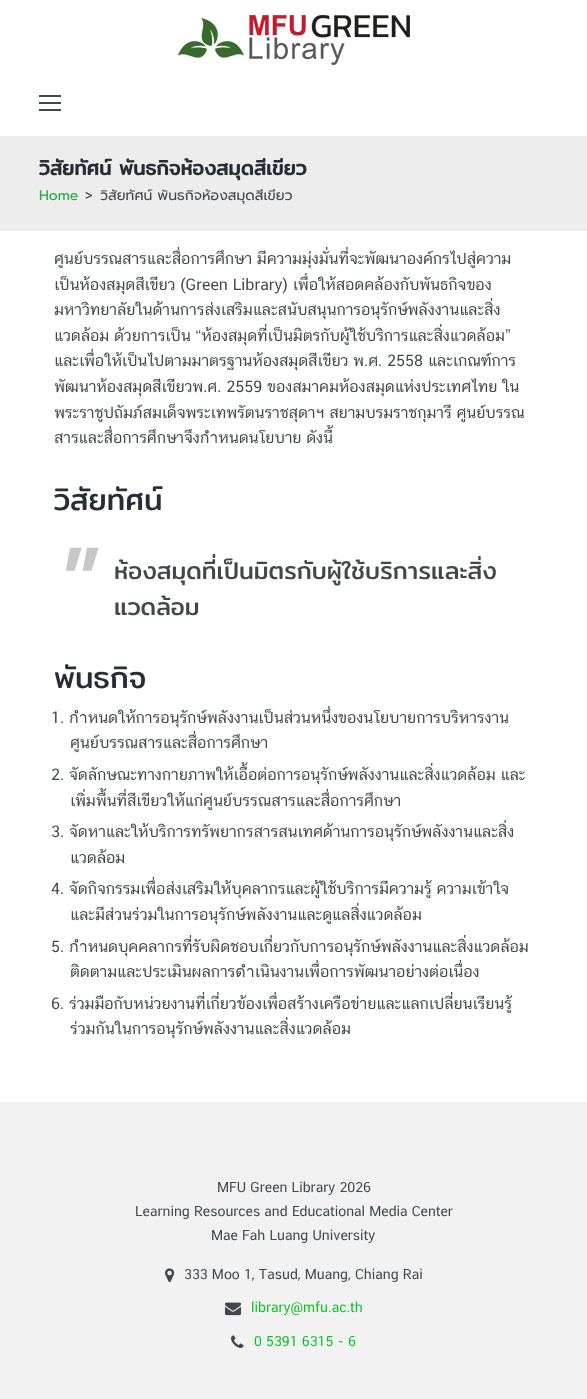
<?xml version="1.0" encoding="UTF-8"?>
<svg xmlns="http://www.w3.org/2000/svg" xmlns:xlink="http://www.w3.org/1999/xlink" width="587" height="1399">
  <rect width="100%" height="100%" fill="#ffffff" />
  <image x="178" y="15" width="232" height="50" xlink:href="image1.png" />
  <rect x="39" y="102" width="22" height="2" fill="#42474c" />
  <rect x="39" y="95" width="22" height="2" fill="#42474c" />
  <rect x="39" y="109" width="22" height="2" fill="#42474c" />
  <rect y="136" width="587" height="95" fill="#ededed" />
  <rect y="1102" width="587" height="297" fill="#f2f2f2" />
  <image x="165" y="1268" width="10" height="15" xlink:href="image2.png" />
  <image x="225" y="1302" width="16" height="14" xlink:href="image3.png" />
  <image x="231" y="1335" width="13" height="13" xlink:href="image4.png" />
  <text x="39" y="175" style="font-family: Mitr; font-size: 20px; font-weight: bold; fill: #262d36">วิสัยทัศน์ พันธกิจห้องสมุดสีเขียว</text>
  <text x="39" y="200" style="font-family: Prompt; font-size: 14px; fill: #28a745">Home</text>
  <text x="85" y="200" style="font-family: Prompt; font-size: 14px; fill: #42474c">&gt;</text>
  <text x="100" y="200" style="font-family: Prompt; font-size: 14px; fill: #42474c">วิสัยทัศน์ พันธกิจห้องสมุดสีเขียว</text>
  <text x="54" y="264" style="font-family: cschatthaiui; font-size: 16px; fill: #42474c">ศูนย์บรรณสารและสื่อการศึกษา มีความมุ่งมั่นที่จะพัฒนาองค์กรไปสู่ความ</text>
  <text x="54" y="290" style="font-family: cschatthaiui; font-size: 16px; fill: #42474c">เป็นห้องสมุดสีเขียว (Green Library) เพื่อให้สอดคล้องกับพันธกิจของ</text>
  <text x="54" y="315" style="font-family: cschatthaiui; font-size: 16px; fill: #42474c">มหาวิทยาลัยในด้านการส่งเสริมและสนับสนุนการอนุรักษ์พลังงานและสิ่ง</text>
  <text x="54" y="341" style="font-family: cschatthaiui; font-size: 16px; fill: #42474c">แวดล้อม ด้วยการเป็น “ห้องสมุดที่เป็นมิตรกับผู้ใช้บริการและสิ่งแวดล้อม”</text>
  <text x="54" y="366" style="font-family: cschatthaiui; font-size: 16px; fill: #42474c">และเพื่อให้เป็นไปตามมาตรฐานห้องสมุดสีเขียว พ.ศ. 2558 และเกณฑ์การ</text>
  <text x="54" y="392" style="font-family: cschatthaiui; font-size: 16px; fill: #42474c">พัฒนาห้องสมุดสีเขียวพ.ศ. 2559 ของสมาคมห้องสมุดแห่งประเทศไทย ใน</text>
  <text x="54" y="418" style="font-family: cschatthaiui; font-size: 16px; fill: #42474c">พระราชูปถัมภ์สมเด็จพระเทพรัตนราชสุดาฯ สยามบรมราชกุมารี ศูนย์บรรณ</text>
  <text x="54" y="443" style="font-family: cschatthaiui; font-size: 16px; fill: #42474c">สารและสื่อการศึกษาจึงกำหนดนโยบาย ดังนี้</text>
  <text x="54" y="510" style="font-family: Mitr; font-size: 30px; fill: #262d36">วิสัยทัศน์</text>
  <text x="44" y="637" style="font-family: Poppins; font-size: 112px; font-weight: 500; font-style: italic; fill: #c7c7c7">"</text>
  <text x="114" y="579" style="font-family: Mitr; font-size: 24px; fill: #42474c">ห้องสมุดที่เป็นมิตรกับผู้ใช้บริการและสิ่ง</text>
  <text x="114" y="615" style="font-family: Mitr; font-size: 24px; fill: #42474c">แวดล้อม</text>
  <text x="54" y="688" style="font-family: Mitr; font-size: 30px; fill: #262d36">พันธกิจ</text>
  <text x="51" y="723" style="font-family: cschatthaiui; font-size: 16px; fill: #42474c">1. กำหนดให้การอนุรักษ์พลังงานเป็นส่วนหนึ่งของนโยบายการบริหารงาน</text>
  <text x="70" y="748" style="font-family: cschatthaiui; font-size: 16px; fill: #42474c">ศูนย์บรรณสารและสื่อการศึกษา</text>
  <text x="51" y="780" style="font-family: cschatthaiui; font-size: 16px; fill: #42474c">2. จัดลักษณะทางกายภาพให้เอื้อต่อการอนุรักษ์พลังงานและสิ่งแวดล้อม และ</text>
  <text x="70" y="806" style="font-family: cschatthaiui; font-size: 16px; fill: #42474c">เพิ่มพื้นที่สีเขียวให้แก่ศูนย์บรรณสารและสื่อการศึกษา</text>
  <text x="51" y="837" style="font-family: cschatthaiui; font-size: 16px; fill: #42474c">3. จัดหาและให้บริการทรัพยากรสารสนเทศด้านการอนุรักษ์พลังงานและสิ่ง</text>
  <text x="70" y="863" style="font-family: cschatthaiui; font-size: 16px; fill: #42474c">แวดล้อม</text>
  <text x="51" y="894" style="font-family: cschatthaiui; font-size: 16px; fill: #42474c">4. จัดกิจกรรมเพื่อส่งเสริมให้บุคลากรและผู้ใช้บริการมีความรู้ ความเข้าใจ</text>
  <text x="70" y="920" style="font-family: cschatthaiui; font-size: 16px; fill: #42474c">และมีส่วนร่วมในการอนุรักษ์พลังงานและดูแลสิ่งแวดล้อม</text>
  <text x="51" y="952" style="font-family: cschatthaiui; font-size: 16px; fill: #42474c">5. กำหนดบุคคลากรที่รับผิดชอบเกี่ยวกับการอนุรักษ์พลังงานและสิ่งแวดล้อม</text>
  <text x="70" y="977" style="font-family: cschatthaiui; font-size: 16px; fill: #42474c">ติดตามและประเมินผลการดำเนินงานเพื่อการพัฒนาอย่างต่อเนื่อง</text>
  <text x="51" y="1009" style="font-family: cschatthaiui; font-size: 16px; fill: #42474c">6. ร่วมมือกับหน่วยงานที่เกี่ยวข้องเพื่อสร้างเครือข่ายและแลกเปลี่ยนเรียนรู้</text>
  <text x="70" y="1034" style="font-family: cschatthaiui; font-size: 16px; fill: #42474c">ร่วมกันในการอนุรักษ์พลังงานและสิ่งแวดล้อม</text>
  <text x="217" y="1192" style="font-family: cschatthaiui; font-size: 14px; fill: #42474c">MFU Green Library 2026</text>
  <text x="135" y="1216" style="font-family: cschatthaiui; font-size: 14px; fill: #42474c">Learning Resources and Educational Media Center</text>
  <text x="211" y="1240" style="font-family: cschatthaiui; font-size: 14px; fill: #42474c">Mae Fah Luang University</text>
  <text x="184" y="1279" style="font-family: cschatthaiui; font-size: 14px; fill: #42474c">333 Moo 1, Tasud, Muang, Chiang Rai</text>
  <text x="251" y="1312" style="font-family: cschatthaiui; font-size: 14px; fill: #0dc128">library@mfu.ac.th</text>
  <text x="254" y="1346" style="font-family: cschatthaiui; font-size: 14px; fill: #0dc128">0 5391 6315 - 6</text>
</svg>
